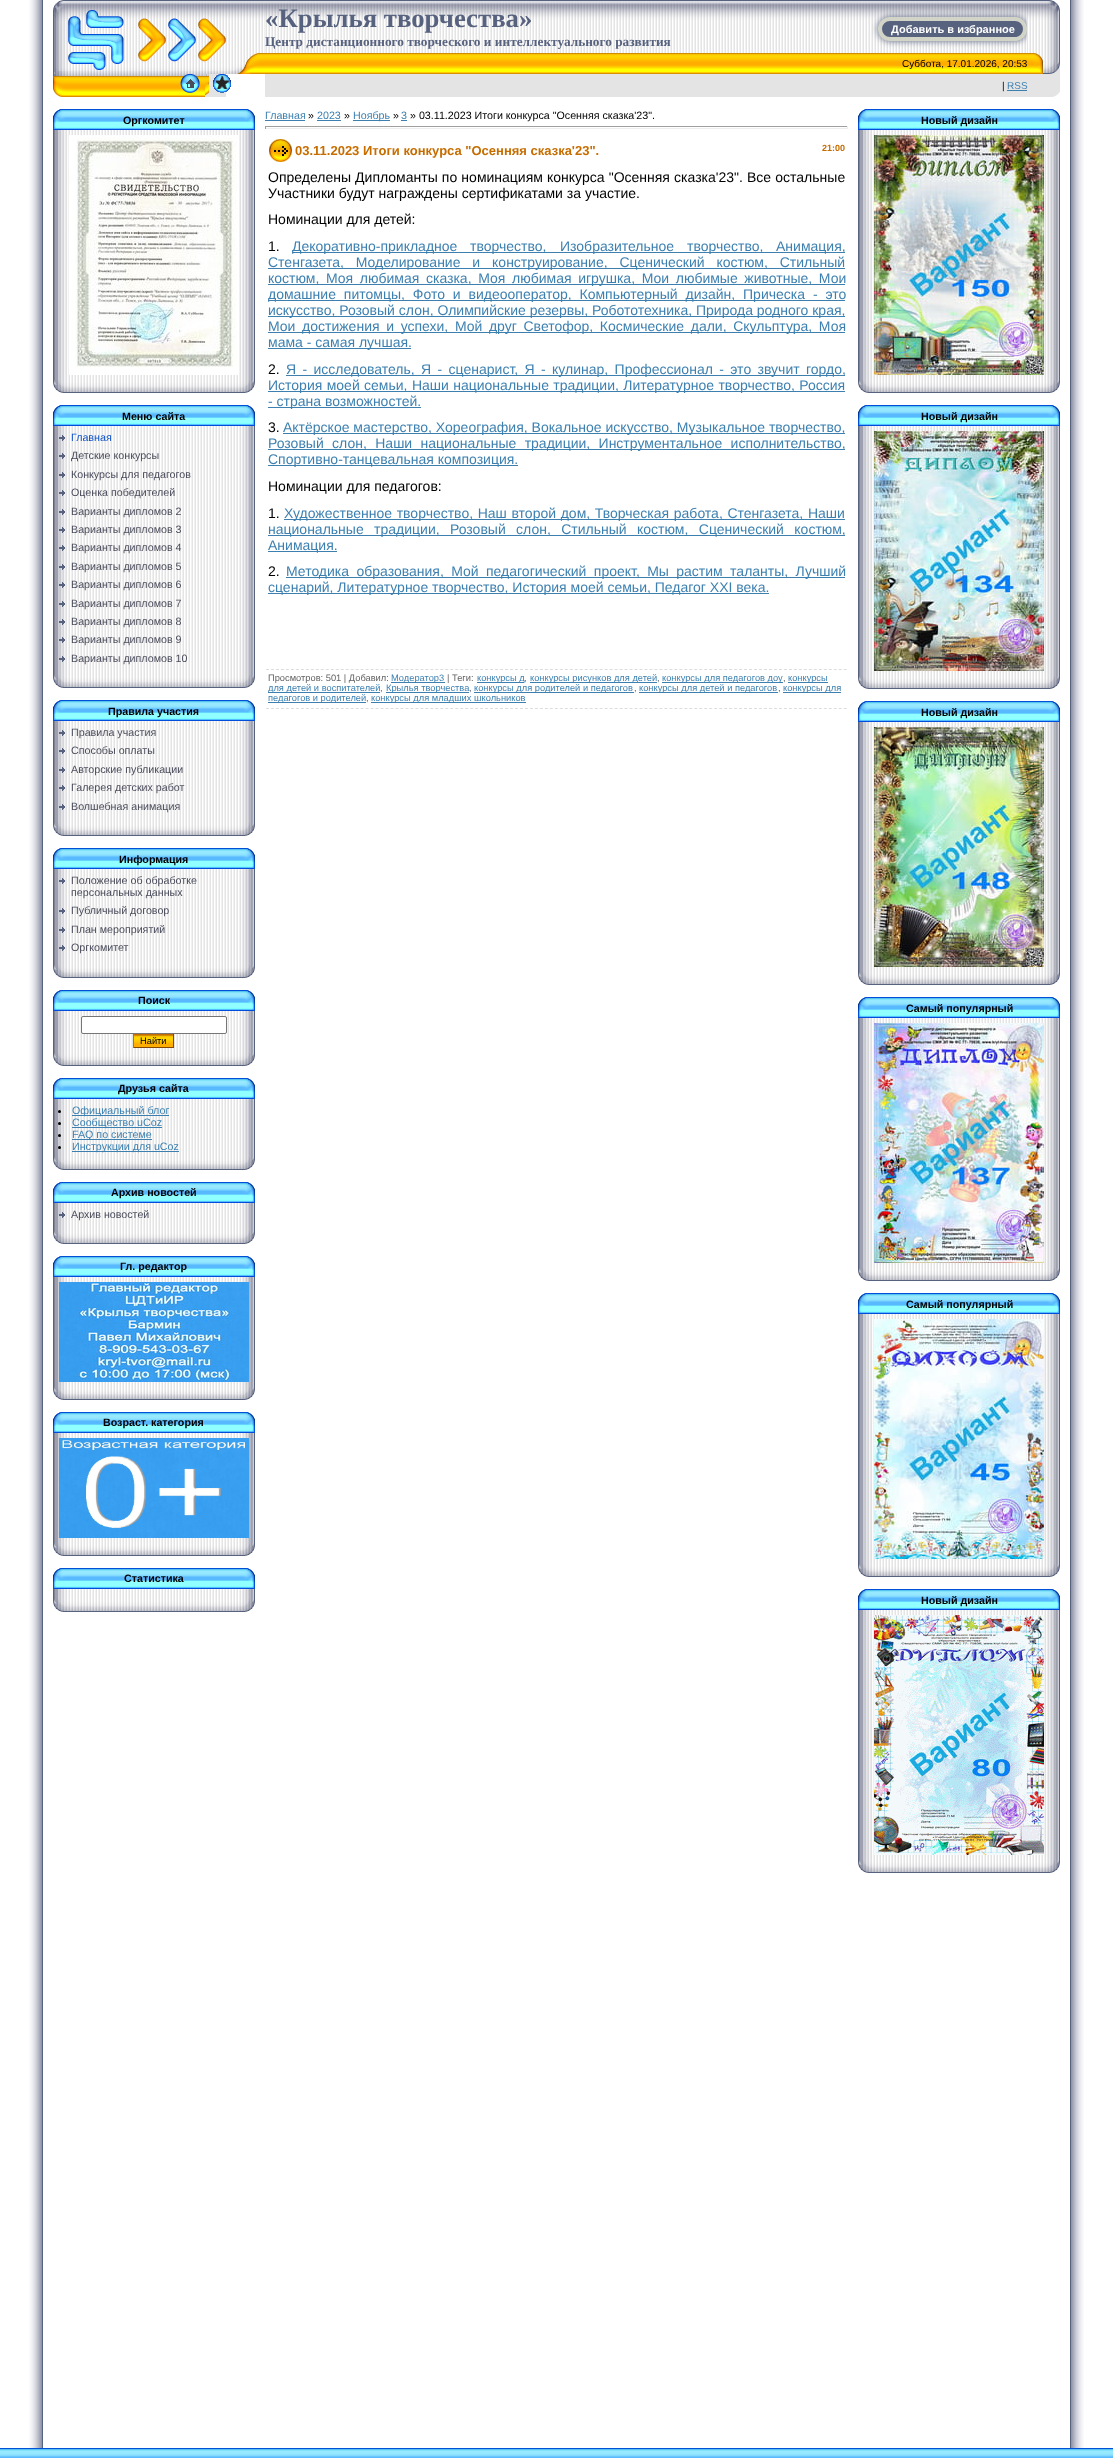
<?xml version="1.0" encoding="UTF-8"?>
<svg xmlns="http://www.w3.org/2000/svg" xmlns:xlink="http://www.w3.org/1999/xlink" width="1113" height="2458">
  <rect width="100%" height="100%" fill="#ffffff" />
  <image x="29" y="0" width="14" height="2448" xlink:href="image1.png" />
  <image x="53" y="0" width="212" height="53" xlink:href="image2.png" />
  <image x="265" y="0" width="762" height="53" xlink:href="image3.png" />
  <rect x="878" y="17" width="149" height="24" rx="12" fill="#57627f" filter="blur(3.5px)" />
  <rect x="880" y="19" width="145" height="20" rx="10" fill="#57627f" stroke="#d2d4c8" stroke-width="4" />
  <image x="1027" y="0" width="33" height="53" xlink:href="image4.png" />
  <image x="53" y="53" width="212" height="21" xlink:href="image5.png" />
  <image x="265" y="53" width="762" height="21" xlink:href="image6.png" />
  <image x="1027" y="53" width="33" height="21" xlink:href="image7.png" />
  <image x="53" y="74" width="127" height="23" xlink:href="image8.png" />
  <image x="180" y="74" width="20" height="23" xlink:href="image9.png" />
  <image x="200" y="74" width="5" height="23" xlink:href="image10.png" />
  <image x="205" y="74" width="4" height="23" xlink:href="image11.png" />
  <rect x="209" y="74" width="17" height="23" fill="#e4e4e4" />
  <image x="213" y="74" width="18" height="19" xlink:href="image12.png" />
  <rect x="265" y="74" width="762" height="23" fill="#e4e4e4" />
  <rect x="1007" y="90" width="20" height="1" fill="#3d80b0" />
  <image x="1027" y="74" width="33" height="23" xlink:href="image13.png" />
  <image x="53" y="109" width="202" height="21" xlink:href="image14.png" />
  <image x="53" y="130" width="202" height="250" xlink:href="image15.png" />
  <image x="69" y="135" width="169" height="240" xlink:href="image16.png" />
  <image x="53" y="380" width="202" height="13" xlink:href="image17.png" />
  <image x="53" y="405" width="202" height="21" xlink:href="image14.png" />
  <image x="53" y="426" width="202" height="249" xlink:href="image18.png" />
  <image x="59" y="435" width="6" height="6" xlink:href="image19.png" />
  <image x="59" y="453" width="6" height="6" xlink:href="image19.png" />
  <image x="59" y="472" width="6" height="6" xlink:href="image19.png" />
  <image x="59" y="490" width="6" height="6" xlink:href="image19.png" />
  <image x="59" y="509" width="6" height="6" xlink:href="image19.png" />
  <image x="59" y="527" width="6" height="6" xlink:href="image19.png" />
  <image x="59" y="545" width="6" height="6" xlink:href="image19.png" />
  <image x="59" y="564" width="6" height="6" xlink:href="image19.png" />
  <image x="59" y="582" width="6" height="6" xlink:href="image19.png" />
  <image x="59" y="601" width="6" height="6" xlink:href="image19.png" />
  <image x="59" y="619" width="6" height="6" xlink:href="image19.png" />
  <image x="59" y="637" width="6" height="6" xlink:href="image19.png" />
  <image x="59" y="656" width="6" height="6" xlink:href="image19.png" />
  <image x="53" y="675" width="202" height="13" xlink:href="image17.png" />
  <image x="53" y="700" width="202" height="21" xlink:href="image14.png" />
  <image x="53" y="721" width="202" height="102" xlink:href="image20.png" />
  <image x="59" y="730" width="6" height="6" xlink:href="image19.png" />
  <image x="59" y="748" width="6" height="6" xlink:href="image19.png" />
  <image x="59" y="767" width="6" height="6" xlink:href="image19.png" />
  <image x="59" y="785" width="6" height="6" xlink:href="image19.png" />
  <image x="59" y="804" width="6" height="6" xlink:href="image19.png" />
  <image x="53" y="823" width="202" height="13" xlink:href="image17.png" />
  <image x="53" y="848" width="202" height="21" xlink:href="image14.png" />
  <image x="53" y="869" width="202" height="96" xlink:href="image21.png" />
  <image x="59" y="878" width="6" height="6" xlink:href="image19.png" />
  <image x="59" y="908" width="6" height="6" xlink:href="image19.png" />
  <image x="59" y="927" width="6" height="6" xlink:href="image19.png" />
  <image x="59" y="945" width="6" height="6" xlink:href="image19.png" />
  <image x="53" y="965" width="202" height="13" xlink:href="image17.png" />
  <image x="53" y="990" width="202" height="21" xlink:href="image14.png" />
  <image x="53" y="1011" width="202" height="42" xlink:href="image22.png" />
  <rect x="81.5" y="1016.5" width="145" height="17" rx="1.5" fill="#ffffff" stroke="#767676" />
  <image x="134" y="1035" width="39" height="12" xlink:href="image23.png" />
  <rect x="133" y="1034" width="41" height="1" fill="#c66d00" />
  <rect x="173" y="1034" width="1" height="14" fill="#844900" />
  <rect x="133" y="1047" width="41" height="1" fill="#844900" />
  <rect x="133" y="1034" width="1" height="14" fill="#c66d00" />
  <image x="53" y="1053" width="202" height="13" xlink:href="image17.png" />
  <image x="53" y="1078" width="202" height="21" xlink:href="image14.png" />
  <image x="53" y="1099" width="202" height="58" xlink:href="image24.png" />
  <circle cx="59.5" cy="1111.5" r="1.5" fill="#000000" />
  <rect x="72" y="1115" width="97" height="1" fill="#3d80b0" />
  <circle cx="59.5" cy="1123.5" r="1.5" fill="#000000" />
  <rect x="72" y="1127" width="90" height="1" fill="#3d80b0" />
  <circle cx="59.5" cy="1135.5" r="1.5" fill="#000000" />
  <rect x="72" y="1139" width="80" height="1" fill="#3d80b0" />
  <circle cx="59.5" cy="1147.5" r="1.5" fill="#000000" />
  <rect x="72" y="1151" width="107" height="1" fill="#3d80b0" />
  <image x="53" y="1157" width="202" height="13" xlink:href="image17.png" />
  <image x="53" y="1182" width="202" height="21" xlink:href="image14.png" />
  <image x="53" y="1203" width="202" height="28" xlink:href="image25.png" />
  <image x="59" y="1212" width="6" height="6" xlink:href="image19.png" />
  <image x="53" y="1231" width="202" height="13" xlink:href="image17.png" />
  <image x="53" y="1256" width="202" height="21" xlink:href="image14.png" />
  <image x="53" y="1277" width="202" height="110" xlink:href="image26.png" />
  <image x="59" y="1282" width="190" height="100" xlink:href="image27.png" />
  <image x="53" y="1387" width="202" height="13" xlink:href="image17.png" />
  <image x="53" y="1412" width="202" height="21" xlink:href="image14.png" />
  <image x="53" y="1433" width="202" height="110" xlink:href="image26.png" />
  <image x="59" y="1438" width="190" height="100" xlink:href="image28.png" />
  <image x="53" y="1543" width="202" height="13" xlink:href="image17.png" />
  <image x="53" y="1568" width="202" height="21" xlink:href="image14.png" />
  <image x="53" y="1589" width="202" height="10" xlink:href="image29.png" />
  <image x="53" y="1599" width="202" height="13" xlink:href="image17.png" />
  <rect x="265" y="120" width="40" height="1" fill="#3d80b0" />
  <rect x="317" y="120" width="24" height="1" fill="#3d80b0" />
  <rect x="353" y="120" width="37" height="1" fill="#3d80b0" />
  <rect x="401" y="120" width="6" height="1" fill="#3d80b0" />
  <rect x="265" y="126" width="583" height="1" fill="#9f9f9f" />
  <rect x="847" y="126" width="1" height="3" fill="#eeeeee" />
  <rect x="265" y="128" width="583" height="1" fill="#eeeeee" />
  <rect x="265" y="126" width="1" height="3" fill="#9f9f9f" />
  <image x="269" y="139" width="23" height="23" xlink:href="image30.png" />
  <rect x="292" y="252" width="553" height="1" fill="#3d80b0" />
  <rect x="268" y="268" width="577" height="1" fill="#3d80b0" />
  <rect x="268" y="284" width="577" height="1" fill="#3d80b0" />
  <rect x="268" y="300" width="577" height="1" fill="#3d80b0" />
  <rect x="268" y="316" width="577" height="1" fill="#3d80b0" />
  <rect x="268" y="332" width="577" height="1" fill="#3d80b0" />
  <rect x="268" y="348" width="143" height="1" fill="#3d80b0" />
  <rect x="286" y="375" width="559" height="1" fill="#3d80b0" />
  <rect x="268" y="391" width="577" height="1" fill="#3d80b0" />
  <rect x="268" y="407" width="153" height="1" fill="#3d80b0" />
  <rect x="283" y="433" width="562" height="1" fill="#3d80b0" />
  <rect x="268" y="449" width="577" height="1" fill="#3d80b0" />
  <rect x="268" y="465" width="250" height="1" fill="#3d80b0" />
  <rect x="284" y="519" width="561" height="1" fill="#3d80b0" />
  <rect x="268" y="535" width="577" height="1" fill="#3d80b0" />
  <rect x="268" y="551" width="69" height="1" fill="#3d80b0" />
  <rect x="286" y="577" width="559" height="1" fill="#3d80b0" />
  <rect x="268" y="593" width="501" height="1" fill="#3d80b0" />
  <path d="M 266 669.5 h 581" fill="none" stroke="#dddddd" stroke-dasharray="3 1.98" />
  <path d="M 266 708.5 h 581" fill="none" stroke="#dddddd" stroke-dasharray="3 1.98" />
  <rect x="391" y="682" width="54" height="1" fill="#3d80b0" />
  <rect x="477" y="682" width="47" height="1" fill="#3d80b0" />
  <rect x="530" y="682" width="127" height="1" fill="#3d80b0" />
  <rect x="662" y="682" width="121" height="1" fill="#3d80b0" />
  <rect x="788" y="682" width="40" height="1" fill="#3d80b0" />
  <rect x="268" y="692" width="112" height="1" fill="#3d80b0" />
  <rect x="386" y="692" width="83" height="1" fill="#3d80b0" />
  <rect x="474" y="692" width="160" height="1" fill="#3d80b0" />
  <rect x="639" y="692" width="139" height="1" fill="#3d80b0" />
  <rect x="783" y="692" width="58" height="1" fill="#3d80b0" />
  <rect x="268" y="702" width="98" height="1" fill="#3d80b0" />
  <rect x="371" y="702" width="155" height="1" fill="#3d80b0" />
  <image x="858" y="109" width="202" height="21" xlink:href="image14.png" />
  <image x="858" y="130" width="202" height="250" xlink:href="image15.png" />
  <image x="874" y="135" width="170" height="240" xlink:href="image31.png" />
  <image x="858" y="380" width="202" height="13" xlink:href="image17.png" />
  <image x="858" y="405" width="202" height="21" xlink:href="image14.png" />
  <image x="858" y="426" width="202" height="250" xlink:href="image15.png" />
  <image x="874" y="431" width="170" height="240" xlink:href="image32.png" />
  <image x="858" y="676" width="202" height="13" xlink:href="image17.png" />
  <image x="858" y="701" width="202" height="21" xlink:href="image14.png" />
  <image x="858" y="722" width="202" height="250" xlink:href="image15.png" />
  <image x="874" y="727" width="170" height="240" xlink:href="image33.png" />
  <image x="858" y="972" width="202" height="13" xlink:href="image17.png" />
  <image x="858" y="997" width="202" height="21" xlink:href="image14.png" />
  <image x="858" y="1018" width="202" height="250" xlink:href="image15.png" />
  <image x="874" y="1023" width="170" height="240" xlink:href="image34.png" />
  <image x="858" y="1268" width="202" height="13" xlink:href="image17.png" />
  <image x="858" y="1293" width="202" height="21" xlink:href="image14.png" />
  <image x="858" y="1314" width="202" height="250" xlink:href="image15.png" />
  <image x="874" y="1319" width="170" height="240" xlink:href="image35.png" />
  <image x="858" y="1564" width="202" height="13" xlink:href="image17.png" />
  <image x="858" y="1589" width="202" height="21" xlink:href="image14.png" />
  <image x="858" y="1610" width="202" height="250" xlink:href="image15.png" />
  <image x="874" y="1615" width="170" height="240" xlink:href="image36.png" />
  <image x="858" y="1860" width="202" height="13" xlink:href="image17.png" />
  <image x="1070" y="0" width="14" height="2448" xlink:href="image37.png" />
  <image x="0" y="2448" width="1113" height="10" xlink:href="image38.png" />
  <text x="265" y="27" style="font-family: Liberation Serif; font-size: 26.75px; font-weight: bold; fill: #57627f">«Крылья творчества»</text>
  <text x="265" y="46" style="font-family: Liberation Serif; font-size: 13.3px; font-weight: bold; fill: #57627f">Центр дистанционного творческого и интеллектуального развития</text>
  <text x="891" y="33" style="font-family: Liberation Sans; font-size: 11px; font-weight: bold; fill: #ffffff">Добавить в избранное</text>
  <text x="902" y="67" style="font-family: Liberation Sans; font-size: 10px; fill: #000000">Суббота, 17.01.2026, 20:53</text>
  <text x="1002" y="89" style="font-family: Liberation Sans; font-size: 10px; fill: #000000">|</text>
  <text x="1007" y="89" style="font-family: Liberation Sans; font-size: 10px; fill: #3d80b0">RSS</text>
  <text x="123" y="124" style="font-family: Liberation Sans; font-size: 10.7px; font-weight: bold; fill: #000000">Оргкомитет</text>
  <text x="122" y="420" style="font-family: Liberation Sans; font-size: 10.7px; font-weight: bold; fill: #000000">Меню сайта</text>
  <text x="71" y="441" style="font-family: Liberation Sans; font-size: 10.7px; fill: #1154ca">Главная</text>
  <text x="71" y="459" style="font-family: Liberation Sans; font-size: 10.7px; fill: #4b4d5c">Детские конкурсы</text>
  <text x="71" y="478" style="font-family: Liberation Sans; font-size: 10.7px; fill: #4b4d5c">Конкурсы для педагогов</text>
  <text x="71" y="496" style="font-family: Liberation Sans; font-size: 10.7px; fill: #4b4d5c">Оценка победителей</text>
  <text x="71" y="515" style="font-family: Liberation Sans; font-size: 10.7px; fill: #4b4d5c">Варианты дипломов 2</text>
  <text x="71" y="533" style="font-family: Liberation Sans; font-size: 10.7px; fill: #4b4d5c">Варианты дипломов 3</text>
  <text x="71" y="551" style="font-family: Liberation Sans; font-size: 10.7px; fill: #4b4d5c">Варианты дипломов 4</text>
  <text x="71" y="570" style="font-family: Liberation Sans; font-size: 10.7px; fill: #4b4d5c">Варианты дипломов 5</text>
  <text x="71" y="588" style="font-family: Liberation Sans; font-size: 10.7px; fill: #4b4d5c">Варианты дипломов 6</text>
  <text x="71" y="607" style="font-family: Liberation Sans; font-size: 10.7px; fill: #4b4d5c">Варианты дипломов 7</text>
  <text x="71" y="625" style="font-family: Liberation Sans; font-size: 10.7px; fill: #4b4d5c">Варианты дипломов 8</text>
  <text x="71" y="643" style="font-family: Liberation Sans; font-size: 10.7px; fill: #4b4d5c">Варианты дипломов 9</text>
  <text x="71" y="662" style="font-family: Liberation Sans; font-size: 10.7px; fill: #4b4d5c">Варианты дипломов 10</text>
  <text x="108" y="715" style="font-family: Liberation Sans; font-size: 10.7px; font-weight: bold; fill: #000000">Правила участия</text>
  <text x="71" y="736" style="font-family: Liberation Sans; font-size: 10.7px; fill: #4b4d5c">Правила участия</text>
  <text x="71" y="754" style="font-family: Liberation Sans; font-size: 10.7px; fill: #4b4d5c">Способы оплаты</text>
  <text x="71" y="773" style="font-family: Liberation Sans; font-size: 10.7px; fill: #4b4d5c">Авторские публикации</text>
  <text x="71" y="791" style="font-family: Liberation Sans; font-size: 10.7px; fill: #4b4d5c">Галерея детских работ</text>
  <text x="71" y="810" style="font-family: Liberation Sans; font-size: 10.7px; fill: #4b4d5c">Волшебная анимация</text>
  <text x="119" y="863" style="font-family: Liberation Sans; font-size: 10.7px; font-weight: bold; fill: #000000">Информация</text>
  <text x="71" y="884" style="font-family: Liberation Sans; font-size: 10.7px; fill: #4b4d5c">Положение об обработке</text>
  <text x="71" y="896" style="font-family: Liberation Sans; font-size: 10.7px; fill: #4b4d5c">персональных данных</text>
  <text x="71" y="914" style="font-family: Liberation Sans; font-size: 10.7px; fill: #4b4d5c">Публичный договор</text>
  <text x="71" y="933" style="font-family: Liberation Sans; font-size: 10.7px; fill: #4b4d5c">План мероприятий</text>
  <text x="71" y="951" style="font-family: Liberation Sans; font-size: 10.7px; fill: #4b4d5c">Оргкомитет</text>
  <text x="138" y="1004" style="font-family: Liberation Sans; font-size: 10.7px; font-weight: bold; fill: #000000">Поиск</text>
  <text x="140" y="1044" style="font-family: Liberation Sans; font-size: 9.3px; fill: #000000">Найти</text>
  <text x="118" y="1092" style="font-family: Liberation Sans; font-size: 10.7px; font-weight: bold; fill: #000000">Друзья сайта</text>
  <text x="72" y="1114" style="font-family: Liberation Sans; font-size: 10.7px; fill: #3d80b0">Официальный блог</text>
  <text x="72" y="1126" style="font-family: Liberation Sans; font-size: 10.7px; fill: #3d80b0">Сообщество uCoz</text>
  <text x="72" y="1138" style="font-family: Liberation Sans; font-size: 10.7px; fill: #3d80b0">FAQ по системе</text>
  <text x="72" y="1150" style="font-family: Liberation Sans; font-size: 10.7px; fill: #3d80b0">Инструкции для uCoz</text>
  <text x="111" y="1196" style="font-family: Liberation Sans; font-size: 10.7px; font-weight: bold; fill: #000000">Архив новостей</text>
  <text x="71" y="1218" style="font-family: Liberation Sans; font-size: 10.7px; fill: #4b4d5c">Архив новостей</text>
  <text x="120" y="1270" style="font-family: Liberation Sans; font-size: 10.7px; font-weight: bold; fill: #000000">Гл. редактор</text>
  <text x="103" y="1426" style="font-family: Liberation Sans; font-size: 10.7px; font-weight: bold; fill: #000000">Возраст. категория</text>
  <text x="124" y="1582" style="font-family: Liberation Sans; font-size: 10.7px; font-weight: bold; fill: #000000">Статистика</text>
  <text x="265" y="119" style="font-family: Liberation Sans; font-size: 10.7px; fill: #3d80b0">Главная</text>
  <text x="308" y="119" style="font-family: Liberation Sans; font-size: 10.7px; fill: #000000">»</text>
  <text x="317" y="119" style="font-family: Liberation Sans; font-size: 10.7px; fill: #3d80b0">2023</text>
  <text x="344" y="119" style="font-family: Liberation Sans; font-size: 10.7px; fill: #000000">»</text>
  <text x="353" y="119" style="font-family: Liberation Sans; font-size: 10.7px; fill: #3d80b0">Ноябрь</text>
  <text x="393" y="119" style="font-family: Liberation Sans; font-size: 10.7px; fill: #000000">»</text>
  <text x="401" y="119" style="font-family: Liberation Sans; font-size: 10.7px; fill: #3d80b0">3</text>
  <text x="410" y="119" style="font-family: Liberation Sans; font-size: 10.7px; fill: #000000">» 03.11.2023 Итоги конкурса "Осенняя сказка'23".</text>
  <text x="295" y="155" style="font-family: Liberation Sans; font-size: 13px; font-weight: bold; fill: #c66d00">03.11.2023 Итоги конкурса "Осенняя сказка'23".</text>
  <text x="822" y="151" style="font-family: Liberation Sans; font-size: 9px; font-weight: bold; fill: #c66d00">21:00</text>
  <text x="268" y="182" word-spacing="0.25" style="font-family: Liberation Sans; font-size: 14px; fill: #000000">Определены Дипломанты по номинациям конкурса "Осенняя сказка'23". Все остальные</text>
  <text x="268" y="198" style="font-family: Liberation Sans; font-size: 14px; fill: #000000">Участники будут награждены сертификатами за участие.</text>
  <text x="268" y="224" style="font-family: Liberation Sans; font-size: 14px; fill: #000000">Номинации для детей:</text>
  <text x="268" y="251" style="font-family: Liberation Sans; font-size: 14px; fill: #000000">1.</text>
  <text x="292" y="251" style="font-family: Liberation Sans; font-size: 14px; fill: #3d80b0">Декоративно-прикладное</text>
  <text x="470" y="251" style="font-family: Liberation Sans; font-size: 14px; fill: #3d80b0">творчество,</text>
  <text x="560" y="251" style="font-family: Liberation Sans; font-size: 14px; fill: #3d80b0">Изобразительное</text>
  <text x="687" y="251" style="font-family: Liberation Sans; font-size: 14px; fill: #3d80b0">творчество,</text>
  <text x="776" y="251" style="font-family: Liberation Sans; font-size: 14px; fill: #3d80b0">Анимация,</text>
  <text x="268" y="267" word-spacing="8" style="font-family: Liberation Sans; font-size: 14px; fill: #3d80b0">Стенгазета, Моделирование и конструирование, Сценический костюм, Стильный</text>
  <text x="268" y="283" word-spacing="2.75" style="font-family: Liberation Sans; font-size: 14px; fill: #3d80b0">костюм, Моя любимая сказка, Моя любимая игрушка, Мои любимые животные, Мои</text>
  <text x="268" y="299" word-spacing="4" style="font-family: Liberation Sans; font-size: 14px; fill: #3d80b0">домашние питомцы, Фото и видеооператор, Компьютерный дизайн, Прическа - это</text>
  <text x="268" y="315" style="font-family: Liberation Sans; font-size: 14px; fill: #3d80b0">искусство, Розовый слон, Олимпийские резервы, Робототехника, Природа родного края,</text>
  <text x="268" y="331" word-spacing="2.75" style="font-family: Liberation Sans; font-size: 14px; fill: #3d80b0">Мои достижения и успехи, Мой друг Светофор, Космические дали, Скульптура, Моя</text>
  <text x="268" y="347" style="font-family: Liberation Sans; font-size: 14px; fill: #3d80b0">мама - самая лучшая.</text>
  <text x="268" y="374" style="font-family: Liberation Sans; font-size: 14px; fill: #000000">2.</text>
  <text x="286" y="374" word-spacing="2.5" style="font-family: Liberation Sans; font-size: 14px; fill: #3d80b0">Я - исследователь, Я - сценарист, Я - кулинар, Профессионал - это звучит гордо,</text>
  <text x="268" y="390" word-spacing="0.5" style="font-family: Liberation Sans; font-size: 14px; fill: #3d80b0">История моей семьи, Наши национальные традиции, Литературное творчество, Россия</text>
  <text x="268" y="406" style="font-family: Liberation Sans; font-size: 14px; fill: #3d80b0">- страна возможностей.</text>
  <text x="268" y="432" style="font-family: Liberation Sans; font-size: 14px; fill: #000000">3.</text>
  <text x="283" y="432" style="font-family: Liberation Sans; font-size: 14px; fill: #3d80b0">Актёрское мастерство, Хореография, Вокальное искусство, Музыкальное творчество,</text>
  <text x="268" y="448" word-spacing="4.5" style="font-family: Liberation Sans; font-size: 14px; fill: #3d80b0">Розовый слон, Наши национальные традиции, Инструментальное исполнительство,</text>
  <text x="268" y="464" style="font-family: Liberation Sans; font-size: 14px; fill: #3d80b0">Спортивно-танцевальная композиция.</text>
  <text x="268" y="491" style="font-family: Liberation Sans; font-size: 14px; fill: #000000">Номинации для педагогов:</text>
  <text x="268" y="518" style="font-family: Liberation Sans; font-size: 14px; fill: #000000">1.</text>
  <text x="284" y="518" word-spacing="0.75" style="font-family: Liberation Sans; font-size: 14px; fill: #3d80b0">Художественное творчество, Наш второй дом, Творческая работа, Стенгазета, Наши</text>
  <text x="268" y="534" word-spacing="6.5" style="font-family: Liberation Sans; font-size: 14px; fill: #3d80b0">национальные традиции, Розовый слон, Стильный костюм, Сценический костюм,</text>
  <text x="268" y="550" style="font-family: Liberation Sans; font-size: 14px; fill: #3d80b0">Анимация.</text>
  <text x="268" y="576" style="font-family: Liberation Sans; font-size: 14px; fill: #000000">2.</text>
  <text x="286" y="576" word-spacing="3.5" style="font-family: Liberation Sans; font-size: 14px; fill: #3d80b0">Методика образования, Мой педагогический проект, Мы растим таланты, Лучший</text>
  <text x="268" y="592" style="font-family: Liberation Sans; font-size: 14px; fill: #3d80b0">сценарий, Литературное творчество, История моей семьи, Педагог XXI века.</text>
  <text x="268" y="681" style="font-family: Liberation Sans; font-size: 9.3px; fill: #636363">Просмотров: 501 | Добавил:</text>
  <text x="391" y="681" style="font-family: Liberation Sans; font-size: 9.3px; fill: #3d80b0">Модератор3</text>
  <text x="447" y="681" style="font-family: Liberation Sans; font-size: 9.3px; fill: #636363">| Теги:</text>
  <text x="477" y="681" style="font-family: Liberation Sans; font-size: 9.3px; fill: #3d80b0">конкурсы д</text>
  <text x="524" y="681" style="font-family: Liberation Sans; font-size: 9.3px; fill: #636363">,</text>
  <text x="530" y="681" style="font-family: Liberation Sans; font-size: 9.3px; fill: #3d80b0">конкурсы рисунков для детей</text>
  <text x="657" y="681" style="font-family: Liberation Sans; font-size: 9.3px; fill: #636363">,</text>
  <text x="662" y="681" style="font-family: Liberation Sans; font-size: 9.3px; fill: #3d80b0">конкурсы для педагогов доу</text>
  <text x="783" y="681" style="font-family: Liberation Sans; font-size: 9.3px; fill: #636363">,</text>
  <text x="788" y="681" style="font-family: Liberation Sans; font-size: 9.3px; fill: #3d80b0">конкурсы</text>
  <text x="268" y="691" style="font-family: Liberation Sans; font-size: 9.3px; fill: #3d80b0">для детей и воспитателей</text>
  <text x="380" y="691" style="font-family: Liberation Sans; font-size: 9.3px; fill: #636363">,</text>
  <text x="386" y="691" style="font-family: Liberation Sans; font-size: 9.3px; fill: #3d80b0">Крылья творчества</text>
  <text x="474" y="691" style="font-family: Liberation Sans; font-size: 9.3px; fill: #3d80b0">конкурсы для родителей и педагогов</text>
  <text x="639" y="691" style="font-family: Liberation Sans; font-size: 9.3px; fill: #3d80b0">конкурсы для детей и педагогов</text>
  <text x="783" y="691" style="font-family: Liberation Sans; font-size: 9.3px; fill: #3d80b0">конкурсы для</text>
  <text x="469" y="691" style="font-family: Liberation Sans; font-size: 9.3px; fill: #636363">,</text>
  <text x="634" y="691" style="font-family: Liberation Sans; font-size: 9.3px; fill: #636363">,</text>
  <text x="778" y="691" style="font-family: Liberation Sans; font-size: 9.3px; fill: #636363">,</text>
  <text x="268" y="701" style="font-family: Liberation Sans; font-size: 9.3px; fill: #3d80b0">педагогов и родителей</text>
  <text x="366" y="701" style="font-family: Liberation Sans; font-size: 9.3px; fill: #636363">,</text>
  <text x="371" y="701" style="font-family: Liberation Sans; font-size: 9.3px; fill: #3d80b0">конкурсы для младших школьников</text>
  <text x="921" y="124" style="font-family: Liberation Sans; font-size: 10.7px; font-weight: bold; fill: #000000">Новый дизайн</text>
  <text x="921" y="420" style="font-family: Liberation Sans; font-size: 10.7px; font-weight: bold; fill: #000000">Новый дизайн</text>
  <text x="921" y="716" style="font-family: Liberation Sans; font-size: 10.7px; font-weight: bold; fill: #000000">Новый дизайн</text>
  <text x="906" y="1012" style="font-family: Liberation Sans; font-size: 10.7px; font-weight: bold; fill: #000000">Самый популярный</text>
  <text x="906" y="1308" style="font-family: Liberation Sans; font-size: 10.7px; font-weight: bold; fill: #000000">Самый популярный</text>
  <text x="921" y="1604" style="font-family: Liberation Sans; font-size: 10.7px; font-weight: bold; fill: #000000">Новый дизайн</text>
</svg>
